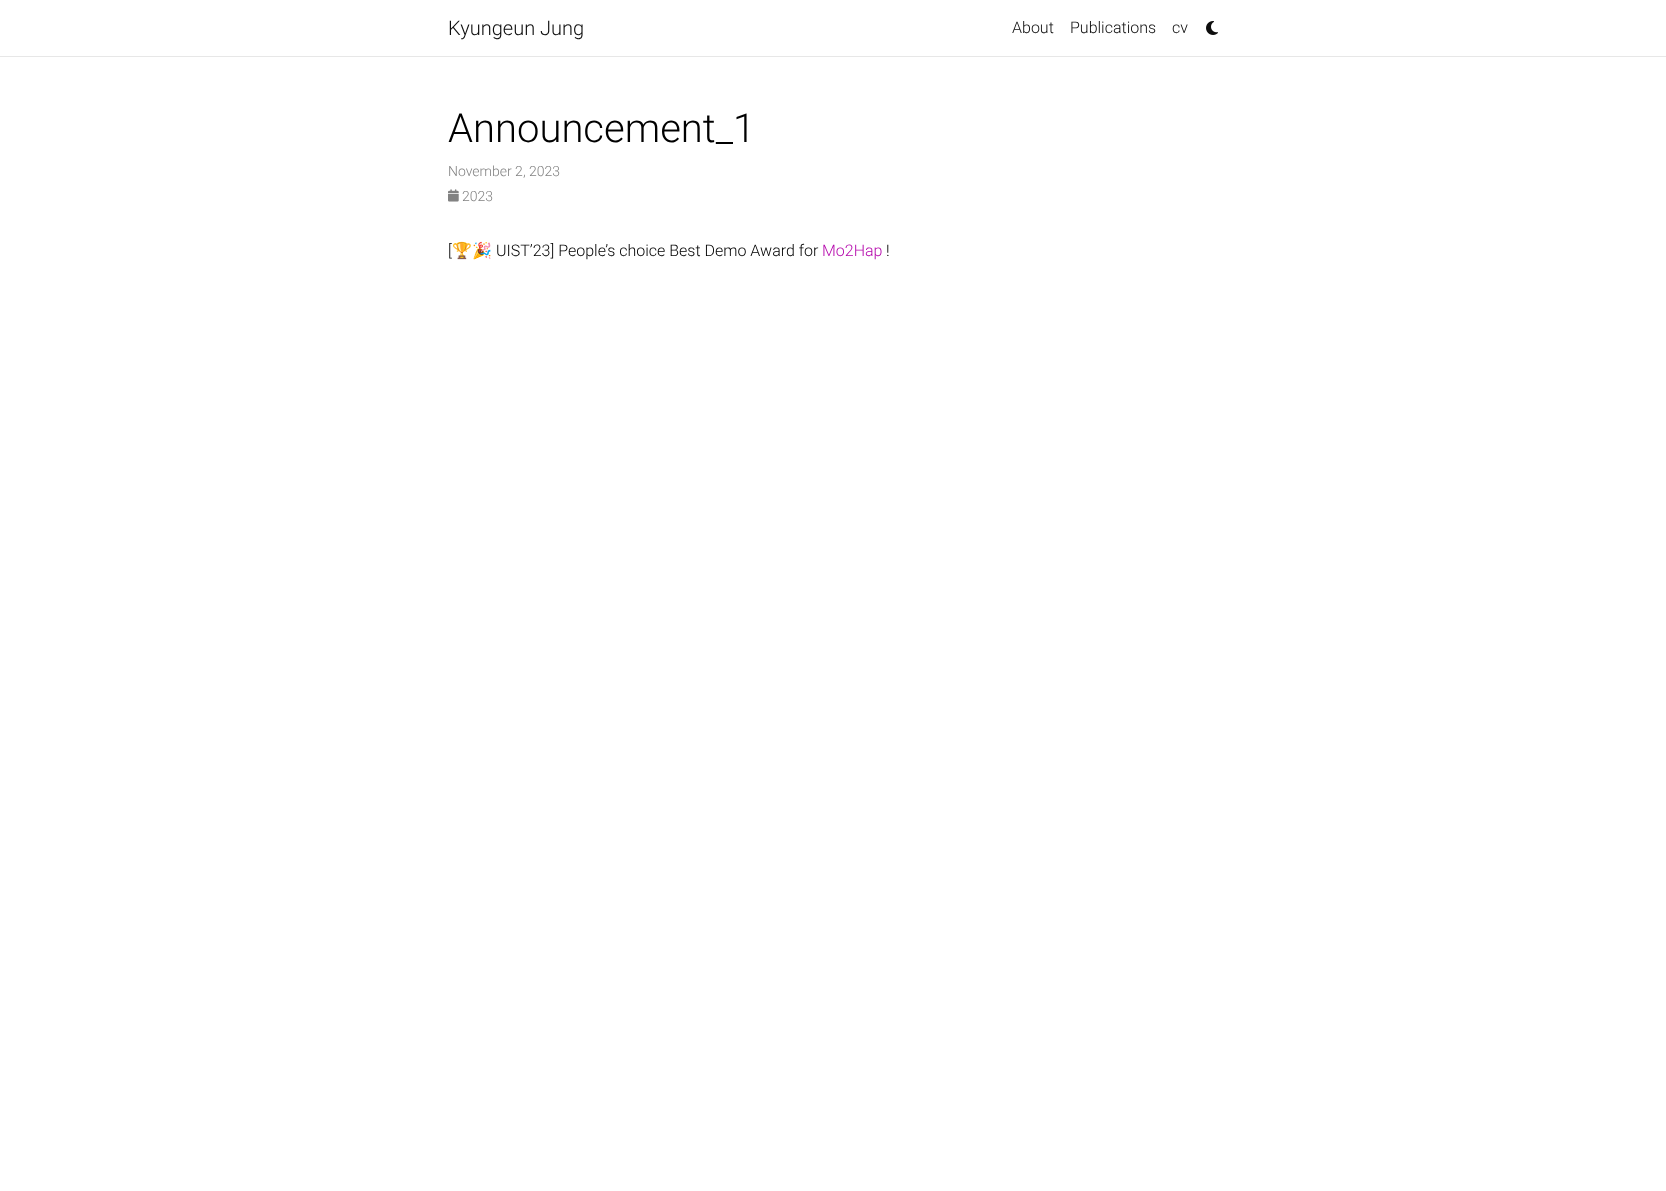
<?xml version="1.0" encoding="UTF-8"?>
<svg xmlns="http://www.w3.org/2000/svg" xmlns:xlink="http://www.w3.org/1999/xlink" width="1666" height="1191">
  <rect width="100%" height="100%" fill="#ffffff" />
  <rect y="56" width="1666" height="1" fill="#e7e7e7" />
  <image x="1206" y="21" width="12" height="14" xlink:href="image1.png" />
  <image x="448" y="189" width="11" height="13" xlink:href="image2.png" />
  <text x="448" y="35" style="font-family: Roboto; font-size: 20px; font-weight: 300; fill: #0d0d0d">Kyungeun Jung</text>
  <text x="1012" y="33" style="font-family: Roboto; font-size: 16px; font-weight: 300; fill: #0d0d0d">About</text>
  <text x="1070" y="33" style="font-family: Roboto; font-size: 16px; font-weight: 300; fill: #0d0d0d">Publications</text>
  <text x="1172" y="33" style="font-family: Roboto; font-size: 16px; font-weight: 300; fill: #0d0d0d">cv</text>
  <text x="448" y="142" style="font-family: Roboto; font-size: 40px; font-weight: 300; fill: #000000">Announcement_1</text>
  <text x="448" y="176" style="font-family: Roboto; font-size: 14px; font-weight: 300; fill: #828282">November 2, 2023</text>
  <text x="462" y="201" style="font-family: Roboto; font-size: 14px; font-weight: 300; fill: #828282">2023</text>
  <text x="448" y="256" style="font-family: Roboto; font-size: 16px; font-weight: 300; fill: #000000">[</text>
  <text x="452" y="256" style="font-family: Noto Color Emoji; font-size: 16px; fill: #000000">🏆🎉</text>
  <text x="496" y="256" style="font-family: Roboto; font-size: 16px; font-weight: 300; fill: #000000">UIST’23] People’s choice Best Demo Award for</text>
  <text x="822" y="256" style="font-family: Roboto; font-size: 16px; font-weight: 300; fill: #b509ac">Mo2Hap</text>
  <text x="886" y="256" style="font-family: Roboto; font-size: 16px; font-weight: 300; fill: #000000">!</text>
</svg>
